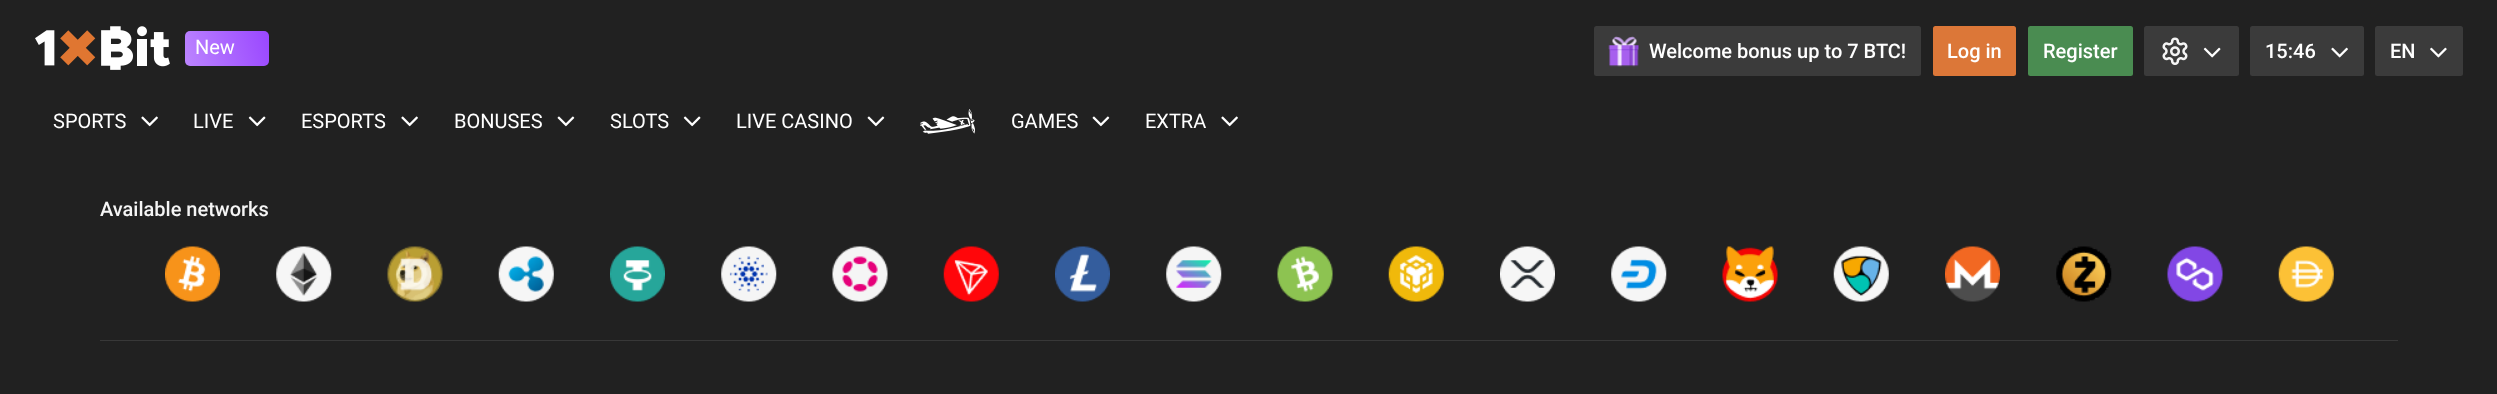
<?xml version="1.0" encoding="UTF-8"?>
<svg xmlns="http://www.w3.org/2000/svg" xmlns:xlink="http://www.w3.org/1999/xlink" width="2497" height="394">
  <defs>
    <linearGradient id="g1" gradientUnits="userSpaceOnUse" x1="270" y1="36" x2="184" y2="62"><stop offset="0" stop-color="#9a47ff" /><stop offset="1" stop-color="#bc85ff" /></linearGradient>
  </defs>
  <rect width="100%" height="100%" fill="#212121" />
  <image x="35" y="26" width="135" height="44" xlink:href="image1.png" />
  <rect x="185" y="31" width="84" height="35" rx="5" fill="url(#g1)" />
  <rect x="1594" y="26" width="327" height="50" rx="2.5" fill="#3b3b3b" />
  <image x="1608" y="36" width="31" height="31" xlink:href="image2.png" />
  <rect x="1933" y="26" width="83" height="50" rx="2.5" fill="#dc7738" />
  <rect x="2028" y="26" width="105" height="50" rx="2.5" fill="#4a8c51" />
  <rect x="2144" y="26" width="95" height="50" rx="2.5" fill="#3b3b3b" />
  <image x="2162" y="37" width="26" height="28" xlink:href="image3.png" />
  <image x="2203" y="47" width="18" height="11" xlink:href="image4.png" />
  <rect x="2250" y="26" width="114" height="50" rx="2.5" fill="#3b3b3b" />
  <image x="2331" y="47" width="17" height="11" xlink:href="image5.png" />
  <rect x="2375" y="26" width="88" height="50" rx="2.5" fill="#3b3b3b" />
  <image x="2430" y="47" width="17" height="11" xlink:href="image6.png" />
  <image x="141" y="116" width="17" height="11" xlink:href="image7.png" />
  <image x="248" y="116" width="18" height="11" xlink:href="image8.png" />
  <image x="401" y="116" width="17" height="11" xlink:href="image7.png" />
  <image x="557" y="116" width="18" height="11" xlink:href="image9.png" />
  <image x="683" y="116" width="18" height="11" xlink:href="image8.png" />
  <image x="867" y="116" width="18" height="11" xlink:href="image9.png" />
  <image x="920" y="109" width="55" height="25" xlink:href="image10.png" />
  <image x="1092" y="116" width="18" height="11" xlink:href="image9.png" />
  <image x="1221" y="116" width="17" height="11" xlink:href="image7.png" />
  <image x="165" y="246" width="55" height="56" xlink:href="image11.png" />
  <image x="276" y="246" width="56" height="56" xlink:href="image12.png" />
  <image x="387" y="246" width="56" height="56" xlink:href="image13.png" />
  <image x="498" y="246" width="56" height="56" xlink:href="image14.png" />
  <image x="610" y="246" width="55" height="56" xlink:href="image15.png" />
  <image x="721" y="246" width="56" height="56" xlink:href="image16.png" />
  <image x="832" y="246" width="56" height="56" xlink:href="image17.png" />
  <image x="943" y="246" width="56" height="56" xlink:href="image18.png" />
  <image x="1055" y="246" width="55" height="56" xlink:href="image19.png" />
  <image x="1166" y="246" width="56" height="56" xlink:href="image20.png" />
  <image x="1277" y="246" width="56" height="56" xlink:href="image21.png" />
  <image x="1388" y="246" width="56" height="56" xlink:href="image22.png" />
  <image x="1500" y="246" width="55" height="56" xlink:href="image23.png" />
  <image x="1611" y="246" width="56" height="56" xlink:href="image24.png" />
  <image x="1722" y="246" width="56" height="56" xlink:href="image25.png" />
  <image x="1833" y="246" width="56" height="56" xlink:href="image26.png" />
  <image x="1945" y="246" width="55" height="56" xlink:href="image27.png" />
  <image x="2056" y="246" width="56" height="56" xlink:href="image28.png" />
  <image x="2167" y="246" width="56" height="56" xlink:href="image29.png" />
  <image x="2278" y="246" width="56" height="56" xlink:href="image30.png" />
  <rect x="100" y="340" width="2298" height="1" fill="#383838" />
  <text x="195" y="54" style="font-family: Roboto; font-size: 20px; fill: #ffffff">New</text>
  <text x="1649" y="58" style="font-family: Roboto; font-size: 20px; font-weight: 500; fill: #ffffff">Welcome bonus up to 7 BTC!</text>
  <text x="1947" y="58" style="font-family: Roboto; font-size: 20px; font-weight: 500; fill: #ffffff">Log in</text>
  <text x="2043" y="58" style="font-family: Roboto; font-size: 20px; font-weight: 500; fill: #ffffff">Register</text>
  <text x="2265" y="58" style="font-family: Roboto; font-size: 20px; font-weight: 500; fill: #ffffff">15:46</text>
  <text x="2390" y="58" style="font-family: Roboto; font-size: 20px; font-weight: 500; fill: #ffffff">EN</text>
  <text x="53" y="128" style="font-family: Roboto; font-size: 20px; fill: #ffffff">SPORTS</text>
  <text x="193" y="128" style="font-family: Roboto; font-size: 20px; fill: #ffffff">LIVE</text>
  <text x="301" y="128" style="font-family: Roboto; font-size: 20px; fill: #ffffff">ESPORTS</text>
  <text x="454" y="128" style="font-family: Roboto; font-size: 20px; fill: #ffffff">BONUSES</text>
  <text x="610" y="128" style="font-family: Roboto; font-size: 20px; fill: #ffffff">SLOTS</text>
  <text x="736" y="128" style="font-family: Roboto; font-size: 20px; fill: #ffffff">LIVE CASINO</text>
  <text x="1011" y="128" style="font-family: Roboto; font-size: 20px; fill: #ffffff">GAMES</text>
  <text x="1145" y="128" style="font-family: Roboto; font-size: 20px; fill: #ffffff">EXTRA</text>
  <text x="100" y="216" style="font-family: Roboto; font-size: 20px; font-weight: 500; fill: #f5f5f5">Available networks</text>
</svg>
